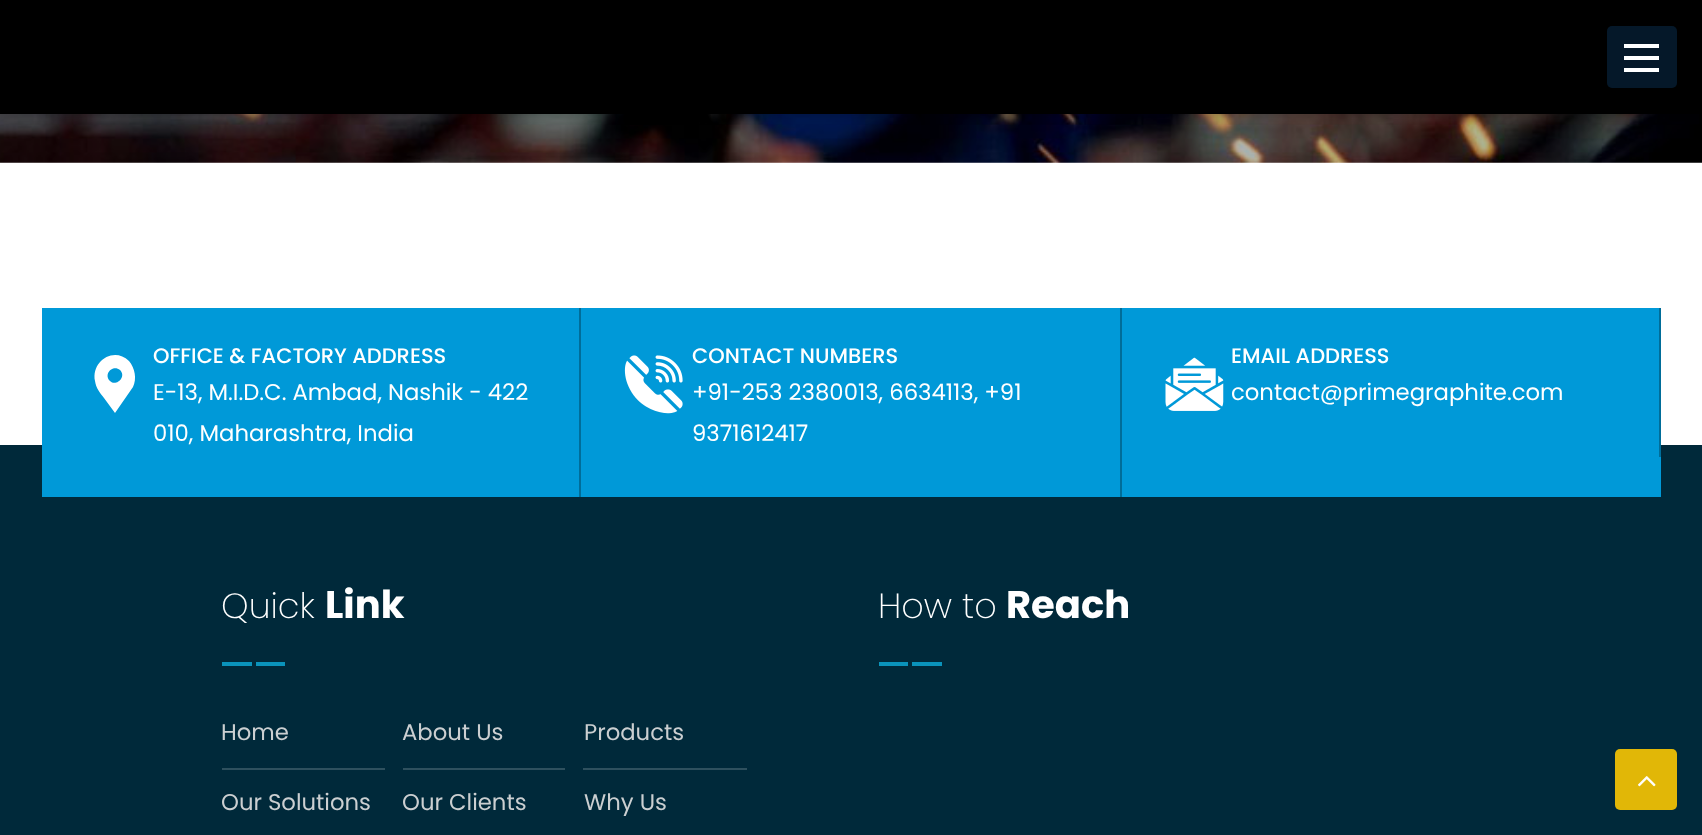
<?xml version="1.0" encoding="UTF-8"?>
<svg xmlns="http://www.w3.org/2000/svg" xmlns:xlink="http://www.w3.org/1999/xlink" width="1702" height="835">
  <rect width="100%" height="100%" fill="#ffffff" />
  <image x="0" y="114" width="1702" height="49" xlink:href="image1.png" />
  <rect y="2" width="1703" height="114" fill="#000000" fill-opacity="0.2" filter="blur(4.5px)" />
  <rect width="1702" height="114" fill="#000000" />
  <rect x="1607" y="26" width="70" height="62" rx="5" fill="#051829" />
  <rect x="1624" y="44" width="35" height="4" fill="#ffffff" />
  <rect x="1624" y="56" width="35" height="4" fill="#ffffff" />
  <rect x="1624" y="68" width="35" height="4" fill="#ffffff" />
  <rect y="445" width="1702" height="390" fill="#00293a" />
  <rect x="42" y="308" width="1619" height="189" fill="#0099d8" />
  <rect x="579" y="308" width="2" height="189" fill="#006d99" />
  <path d="M 129 361 c 6 7 8 18 4 26 l -18 26 l -11 -15 c -4 -5 -8 -10 -9 -17 c -4 -20 19 -35 34 -20 z m -19 20 c 6 6 17 -4 10 -11 c -7 -6 -17 4 -10 11 z" fill="#ffffff" />
  <rect x="1120" y="308" width="2" height="189" fill="#006d99" />
  <image x="624" y="355" width="59" height="59" xlink:href="image2.png" />
  <rect x="1659" y="308" width="2" height="149" fill="#006d99" />
  <image x="1165" y="357" width="59" height="54" xlink:href="image3.png" />
  <rect x="222" y="662" width="30" height="4" fill="#0a93bb" />
  <rect x="256" y="662" width="29" height="4" fill="#0a93bb" />
  <rect x="222" y="768" width="163" height="2" fill="#2e505e" />
  <rect x="403" y="768" width="162" height="2" fill="#2e505e" />
  <rect x="583" y="768" width="164" height="2" fill="#2e505e" />
  <rect x="879" y="662" width="29" height="4" fill="#0a93bb" />
  <rect x="912" y="662" width="30" height="4" fill="#0a93bb" />
  <rect x="1615" y="749" width="62" height="61" rx="5" fill="#e1b707" />
  <image x="1638" y="776" width="18" height="11" xlink:href="image4.png" />
  <text x="153" y="363" style="font-family: Poppins; font-size: 21px; font-weight: 500; fill: #ffffff">OFFICE &amp; FACTORY ADDRESS</text>
  <text x="153" y="400" style="font-family: Poppins; font-size: 22.75px; fill: #ffffff">E-13, M.I.D.C. Ambad, Nashik - 422</text>
  <text x="153" y="441" style="font-family: Poppins; font-size: 22.75px; fill: #ffffff">010, Maharashtra, India</text>
  <text x="692" y="363" style="font-family: Poppins; font-size: 21px; font-weight: 500; fill: #ffffff">CONTACT NUMBERS</text>
  <text x="692" y="400" style="font-family: Poppins; font-size: 22.75px; fill: #ffffff">+91-253 2380013, 6634113, +91</text>
  <text x="692" y="441" style="font-family: Poppins; font-size: 22.75px; fill: #ffffff">9371612417</text>
  <text x="1231" y="363" style="font-family: Poppins; font-size: 21px; font-weight: 500; fill: #ffffff">EMAIL ADDRESS</text>
  <text x="1231" y="400" style="font-family: Poppins; font-size: 22.75px; fill: #ffffff">contact@primegraphite.com</text>
  <text x="221" y="618" style="font-family: Poppins; font-size: 35px; font-weight: 200; fill: #ffffff">Quick</text>
  <text x="325" y="618" style="font-family: Poppins; font-size: 38.5px; font-weight: bold; fill: #ffffff">Link</text>
  <text x="221" y="740" style="font-family: Poppins; font-size: 22.75px; fill: #cbcfd1">Home</text>
  <text x="402" y="740" style="font-family: Poppins; font-size: 22.75px; fill: #cbcfd1">About Us</text>
  <text x="584" y="740" style="font-family: Poppins; font-size: 22.75px; fill: #cbcfd1">Products</text>
  <text x="221" y="810" style="font-family: Poppins; font-size: 22.75px; fill: #cbcfd1">Our Solutions</text>
  <text x="402" y="810" style="font-family: Poppins; font-size: 22.75px; fill: #cbcfd1">Our Clients</text>
  <text x="584" y="810" style="font-family: Poppins; font-size: 22.75px; fill: #cbcfd1">Why Us</text>
  <text x="878" y="618" style="font-family: Poppins; font-size: 35px; font-weight: 200; fill: #ffffff">How to</text>
  <text x="1006" y="618" style="font-family: Poppins; font-size: 38.5px; font-weight: bold; fill: #ffffff">Reach</text>
</svg>
